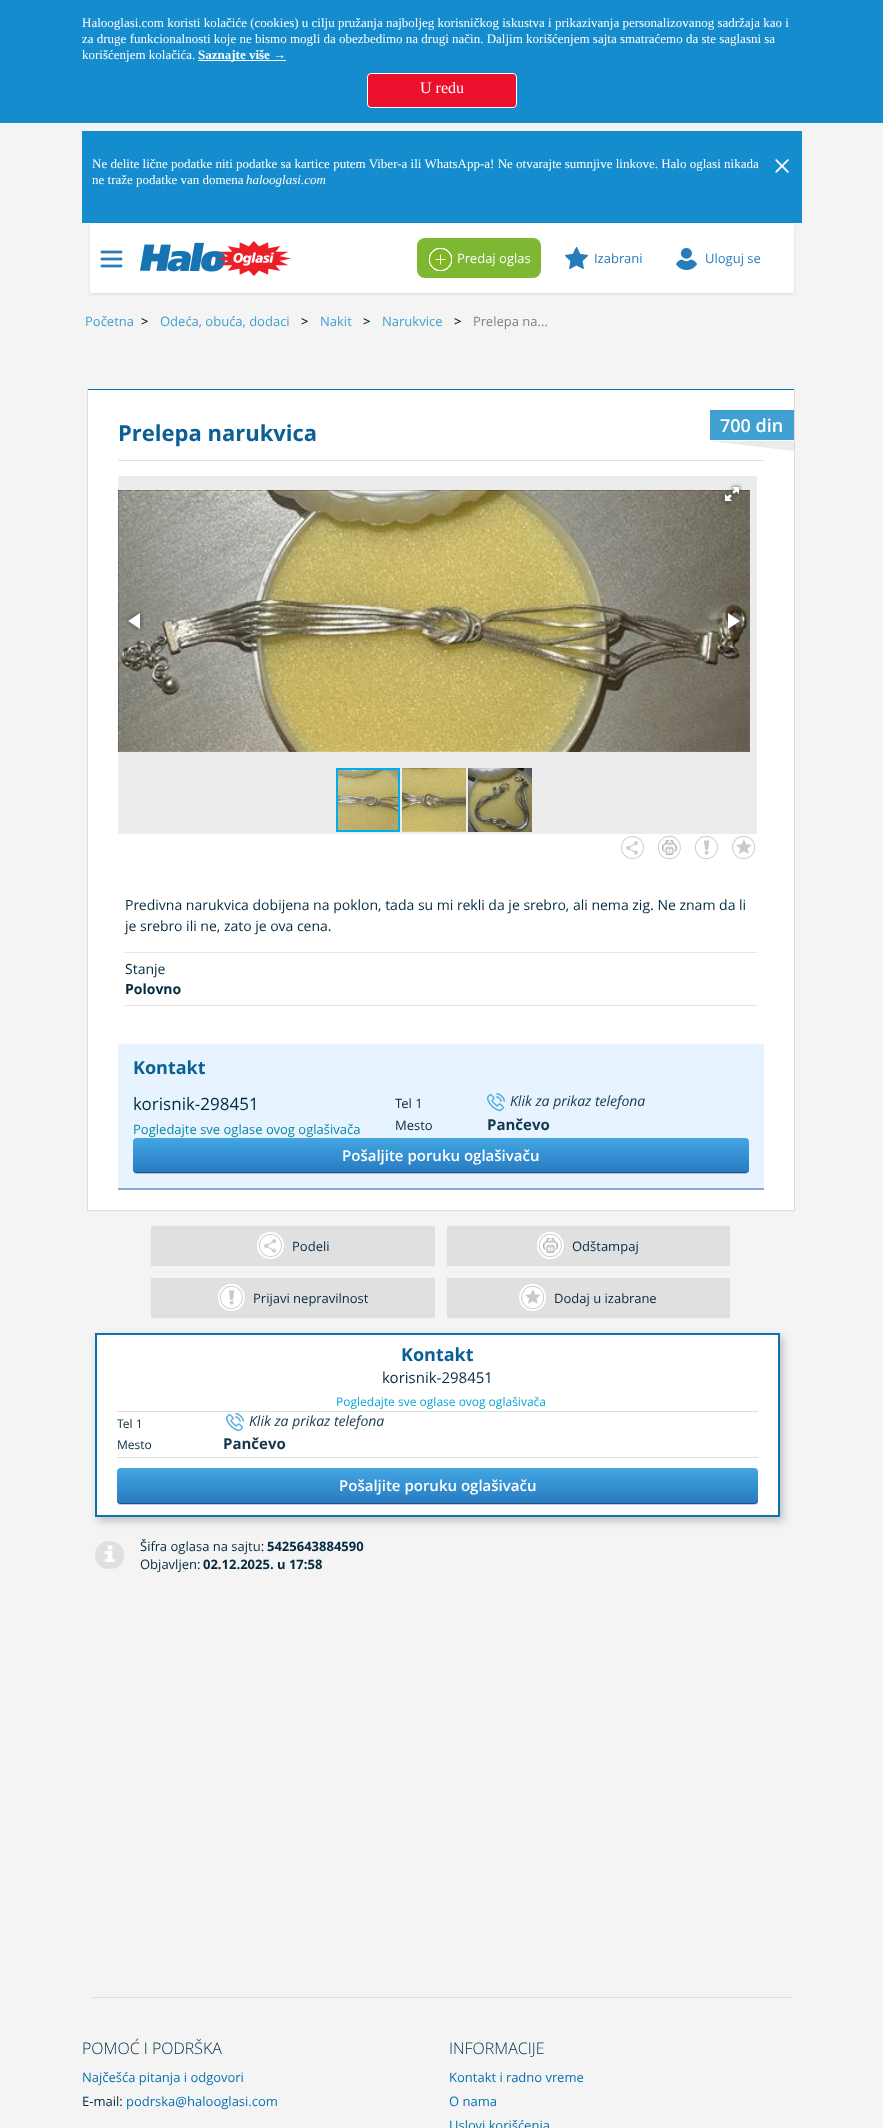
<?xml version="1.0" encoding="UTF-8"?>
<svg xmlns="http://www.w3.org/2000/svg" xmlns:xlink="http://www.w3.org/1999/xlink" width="883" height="2128">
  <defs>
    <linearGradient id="g1" gradientUnits="userSpaceOnUse" x1="441" y1="1138" x2="441" y2="1173"><stop offset="0" stop-color="#43a6e2" /><stop offset="1" stop-color="#277ac1" /></linearGradient>
    <linearGradient id="g2" gradientUnits="userSpaceOnUse" x1="438" y1="1468" x2="438" y2="1504"><stop offset="0" stop-color="#43a6e2" /><stop offset="1" stop-color="#277ac1" /></linearGradient>
  </defs>
  <rect width="100%" height="100%" fill="#f4f4f4" />
  <rect width="883" height="123" fill="#158ccd" />
  <rect x="198" y="60" width="88" height="1" fill="#ffffff" />
  <rect x="367.5" y="73.5" width="149" height="34" rx="3.5" fill="#eb112d" stroke="#ffffff" />
  <rect x="82" y="131" width="720" height="92" fill="#158ccd" />
  <image x="775" y="159" width="14" height="14" xlink:href="image1.png" />
  <rect x="90" y="224" width="704" height="70" fill="#3c4043" fill-opacity="0.15" filter="blur(1.5px)" />
  <rect x="90" y="223" width="704" height="70" fill="#ffffff" />
  <image x="100" y="250" width="23" height="18" xlink:href="image2.png" />
  <image x="140" y="241" width="151" height="35" xlink:href="image3.png" />
  <rect x="417" y="238" width="124" height="40" rx="8" fill="#7eb832" />
  <image x="429" y="248" width="23" height="23" xlink:href="image4.png" />
  <image x="565" y="247" width="23" height="22" xlink:href="image5.png" />
  <image x="676" y="248" width="21" height="22" xlink:href="image6.png" />
  <rect x="88" y="390" width="706" height="820" fill="#ffffff" />
  <rect x="87" y="389" width="708" height="1" fill="#0a72af" />
  <rect x="794" y="389" width="1" height="822" fill="#dbdbdb" />
  <rect x="87" y="1210" width="708" height="1" fill="#dbdbdb" />
  <rect x="87" y="389" width="1" height="822" fill="#dbdbdb" />
  <rect x="118" y="460" width="646" height="1" fill="#e2e2e2" />
  <rect x="710" y="410" width="84" height="30" fill="#41a0d2" />
  <image x="712" y="441" width="82" height="10" xlink:href="image7.png" />
  <rect x="118" y="476" width="639" height="358" fill="#ececec" />
  <image x="118" y="490" width="632" height="262" xlink:href="image9.png" />
  <image x="721" y="483" width="22" height="22" xlink:href="image8.png" />
  <image x="126" y="611" width="18" height="21" xlink:href="image10.png" />
  <image x="724" y="611" width="18" height="21" xlink:href="image11.png" />
  <image x="338" y="770" width="60" height="60" xlink:href="image14.png" />
  <rect x="337" y="769" width="62" height="62" fill="none" stroke="#00afea" stroke-width="2" />
  <image x="402" y="768" width="64" height="64" xlink:href="image12.png" />
  <image x="468" y="768" width="64" height="64" xlink:href="image13.png" />
  <image x="621" y="836" width="23" height="23" xlink:href="image15.png" />
  <image x="657" y="836" width="24" height="23" xlink:href="image16.png" />
  <image x="695" y="836" width="23" height="23" xlink:href="image17.png" />
  <image x="732" y="836" width="23" height="23" xlink:href="image18.png" />
  <rect x="125" y="952" width="632" height="1" fill="#e4e4e4" />
  <rect x="125" y="1005" width="632" height="1" fill="#e4e4e4" />
  <rect x="118" y="1044" width="646" height="144" fill="#e7f3ff" />
  <rect x="118" y="1188" width="646" height="2" fill="#8ba9d2" />
  <image x="487" y="1093" width="18" height="19" xlink:href="image19.png" />
  <path d="M 133 1169 c 0 3 1 5 4 5 h 608 c 2 0 3 -1 4 -2 v -3 c 0 2 -2 4 -4 4 h -608 c -2 0 -4 -2 -4 -4 z" fill="#b9c2cc" />
  <rect x="133" y="1138" width="616" height="35" rx="4" fill="url(#g1)" />
  <path d="M 133 1168 v 1 c 0 2 2 4 4 4 h 608 c 2 0 4 -2 4 -4 v -1 c 0 2 -2 4 -4 4 h -608 c -2 0 -4 -2 -4 -4 z" fill="#000000" fill-opacity="0.3" />
  <rect x="151.5" y="1226.5" width="283" height="39" fill="#e0e0e0" stroke="#dfdfdd" />
  <image x="257" y="1232" width="27" height="27" xlink:href="image20.png" />
  <rect x="447.5" y="1226.5" width="282" height="39" fill="#e0e0e0" stroke="#dfdfdd" />
  <image x="537" y="1232" width="27" height="27" xlink:href="image21.png" />
  <rect x="151.5" y="1278.5" width="283" height="39" fill="#e0e0e0" stroke="#dfdfdd" />
  <image x="218" y="1284" width="27" height="27" xlink:href="image22.png" />
  <rect x="447.5" y="1278.5" width="282" height="39" fill="#e0e0e0" stroke="#dfdfdd" />
  <image x="519" y="1284" width="27" height="27" xlink:href="image23.png" />
  <rect x="98" y="1337" width="685" height="184" fill="#bfbfbf" filter="blur(4px)" />
  <rect x="96" y="1334" width="683" height="182" fill="#ffffff" stroke="#0a72af" stroke-width="2" />
  <rect x="117" y="1411" width="641" height="1" fill="#dddddd" />
  <rect x="117" y="1457" width="641" height="1" fill="#dddddd" />
  <image x="226" y="1413" width="18" height="19" xlink:href="image24.png" />
  <path d="M 117 1500 c 0 3 1 5 4 5 h 633 l 3 -1 l 1 -1 v -3 c 0 2 -2 4 -4 4 h -633 c -2 0 -4 -2 -4 -4 z" fill="#cccccc" />
  <rect x="117" y="1468" width="641" height="36" rx="4" fill="url(#g2)" />
  <path d="M 117 1499 c 0 3 1 5 4 5 h 633 c 3 0 4 -2 4 -5 c 0 2 -2 4 -4 4 h -633 c -2 0 -4 -2 -4 -4 z" fill="#000000" fill-opacity="0.3" />
  <image x="95" y="1541" width="29" height="28" xlink:href="image25.png" />
  <rect x="92" y="1997" width="700" height="1" fill="#e0e0de" />
  <text x="82" y="27" style="font-family: Liberation Serif; font-size: 13px; fill: #ffffff">Halooglasi.com koristi kolačiće (cookies) u cilju pružanja najboljeg korisničkog iskustva i prikazivanja personalizovanog sadržaja kao i</text>
  <text x="82" y="43" style="font-family: Liberation Serif; font-size: 13px; fill: #ffffff">za druge funkcionalnosti koje ne bismo mogli da obezbedimo na drugi način. Daljim korišćenjem sajta smatraćemo da ste saglasni sa</text>
  <text x="82" y="59" style="font-family: Liberation Serif; font-size: 13px; fill: #ffffff">korišćenjem kolačića.</text>
  <text x="198" y="59" style="font-family: Liberation Serif; font-size: 13px; font-weight: bold; fill: #ffffff">Saznajte više →</text>
  <text x="420" y="93" style="font-family: Liberation Serif; font-size: 16px; fill: #ffffff">U redu</text>
  <text x="92" y="168" style="font-family: Liberation Serif; font-size: 13px; fill: #ffffff">Ne delite lične podatke niti podatke sa kartice putem Viber-a ili WhatsApp-a! Ne otvarajte sumnjive linkove. Halo oglasi nikada</text>
  <text x="92" y="184" style="font-family: Liberation Serif; font-size: 13px; fill: #ffffff">ne traže podatke van domena</text>
  <text x="246" y="184" style="font-family: Liberation Serif; font-size: 13px; font-style: italic; fill: #ffffff">halooglasi.com</text>
  <text x="457" y="263" style="font-family: Open Sans; font-size: 13px; fill: #ffffff">Predaj oglas</text>
  <text x="594" y="263" style="font-family: Open Sans; font-size: 13px; fill: #287cbb">Izabrani</text>
  <text x="705" y="263" style="font-family: Open Sans; font-size: 13px; fill: #287cbb">Uloguj se</text>
  <text x="85" y="326" style="font-family: Open Sans; font-size: 13px; fill: #41a0d2">Početna</text>
  <text x="141" y="326" style="font-family: Open Sans; font-size: 13px; font-weight: 600; fill: #042940">&gt;</text>
  <text x="160" y="326" style="font-family: Open Sans; font-size: 13px; fill: #41a0d2">Odeća, obuća, dodaci</text>
  <text x="301" y="326" style="font-family: Open Sans; font-size: 13px; font-weight: 600; fill: #042940">&gt;</text>
  <text x="320" y="326" style="font-family: Open Sans; font-size: 13px; fill: #41a0d2">Nakit</text>
  <text x="363" y="326" style="font-family: Open Sans; font-size: 13px; font-weight: 600; fill: #042940">&gt;</text>
  <text x="382" y="326" style="font-family: Open Sans; font-size: 13px; fill: #41a0d2">Narukvice</text>
  <text x="454" y="326" style="font-family: Open Sans; font-size: 13px; font-weight: 600; fill: #042940">&gt;</text>
  <text x="473" y="326" style="font-family: Open Sans; font-size: 13px; fill: #828282">Prelepa na...</text>
  <text x="118" y="441" style="font-family: Open Sans; font-size: 22px; font-weight: bold; fill: #0a6095">Prelepa narukvica</text>
  <text x="720" y="432" style="font-family: Open Sans; font-size: 18px; font-weight: 600; fill: #ffffff">700 din</text>
  <text x="125" y="910" style="font-family: Open Sans; font-size: 14px; fill: #042940">Predivna narukvica dobijena na poklon, tada su mi rekli da je srebro, ali nema zig. Ne znam da li</text>
  <text x="125" y="931" style="font-family: Open Sans; font-size: 14px; fill: #042940">je srebro ili ne, zato je ova cena.</text>
  <text x="125" y="974" style="font-family: Open Sans; font-size: 14px; fill: #042940">Stanje</text>
  <text x="125" y="994" style="font-family: Open Sans; font-size: 14px; font-weight: bold; fill: #042940">Polovno</text>
  <text x="133" y="1074" style="font-family: Open Sans; font-size: 18px; font-weight: bold; fill: #0a6095">Kontakt</text>
  <text x="133" y="1110" style="font-family: Open Sans; font-size: 17px; fill: #042940">korisnik-298451</text>
  <text x="133" y="1134" style="font-family: Open Sans; font-size: 13px; fill: #0388a6">Pogledajte sve oglase ovog oglašivača</text>
  <text x="395" y="1108" style="font-family: Open Sans; font-size: 13px; fill: #042940">Tel 1</text>
  <text x="510" y="1106" style="font-family: Open Sans; font-size: 14px; font-style: italic; fill: #15374d">Klik za prikaz telefona</text>
  <text x="395" y="1130" style="font-family: Open Sans; font-size: 13px; fill: #042940">Mesto</text>
  <text x="487" y="1130" style="font-family: Open Sans; font-size: 15px; font-weight: bold; fill: #15374d">Pančevo</text>
  <text x="342" y="1161" style="font-family: Open Sans; font-size: 15px; font-weight: 600; fill: #ffffff">Pošaljite poruku oglašivaču</text>
  <text x="292" y="1251" style="font-family: Open Sans; font-size: 13px; fill: #042940">Podeli</text>
  <text x="572" y="1251" style="font-family: Open Sans; font-size: 13px; fill: #042940">Odštampaj</text>
  <text x="253" y="1303" style="font-family: Open Sans; font-size: 13px; fill: #042940">Prijavi nepravilnost</text>
  <text x="554" y="1303" style="font-family: Open Sans; font-size: 13px; fill: #042940">Dodaj u izabrane</text>
  <text x="401" y="1361" style="font-family: Open Sans; font-size: 18px; font-weight: bold; fill: #0a6095">Kontakt</text>
  <text x="382" y="1383" style="font-family: Open Sans; font-size: 15px; fill: #042940">korisnik-298451</text>
  <text x="336" y="1406" style="font-family: Open Sans; font-size: 12px; fill: #0ca4da">Pogledajte sve oglase ovog oglašivača</text>
  <text x="117" y="1428" style="font-family: Open Sans; font-size: 12px; fill: #042940">Tel 1</text>
  <text x="249" y="1426" style="font-family: Open Sans; font-size: 14px; font-style: italic; fill: #15374d">Klik za prikaz telefona</text>
  <text x="117" y="1449" style="font-family: Open Sans; font-size: 12px; fill: #042940">Mesto</text>
  <text x="223" y="1449" style="font-family: Open Sans; font-size: 15px; font-weight: bold; fill: #15374d">Pančevo</text>
  <text x="339" y="1491" style="font-family: Open Sans; font-size: 15px; font-weight: 600; fill: #ffffff">Pošaljite poruku oglašivaču</text>
  <text x="140" y="1551" style="font-family: Open Sans; font-size: 13px; fill: #042940">Šifra oglasa na sajtu:</text>
  <text x="267" y="1551" style="font-family: Open Sans; font-size: 13px; font-weight: bold; fill: #042940">5425643884590</text>
  <text x="140" y="1569" style="font-family: Open Sans; font-size: 13px; fill: #042940">Objavljen:</text>
  <text x="203" y="1569" style="font-family: Open Sans; font-size: 13px; font-weight: bold; fill: #042940">02.12.2025. u 17:58</text>
  <text x="82" y="2054" style="font-family: Open Sans; font-size: 16px; font-weight: 300; fill: #042940">POMOĆ I PODRŠKA</text>
  <text x="82" y="2082" style="font-family: Open Sans; font-size: 13px; fill: #0572b1">Najčešća pitanja i odgovori</text>
  <text x="82" y="2106" style="font-family: Open Sans; font-size: 13px; fill: #042940">E-mail:</text>
  <text x="126" y="2106" style="font-family: Open Sans; font-size: 13px; fill: #0572b1">podrska@halooglasi.com</text>
  <text x="449" y="2054" style="font-family: Open Sans; font-size: 16px; font-weight: 300; fill: #042940">INFORMACIJE</text>
  <text x="449" y="2082" style="font-family: Open Sans; font-size: 13px; fill: #0572b1">Kontakt i radno vreme</text>
  <text x="449" y="2106" style="font-family: Open Sans; font-size: 13px; fill: #0572b1">O nama</text>
  <text x="449" y="2130" style="font-family: Open Sans; font-size: 13px; fill: #0572b1">Uslovi korišćenja</text>
</svg>
